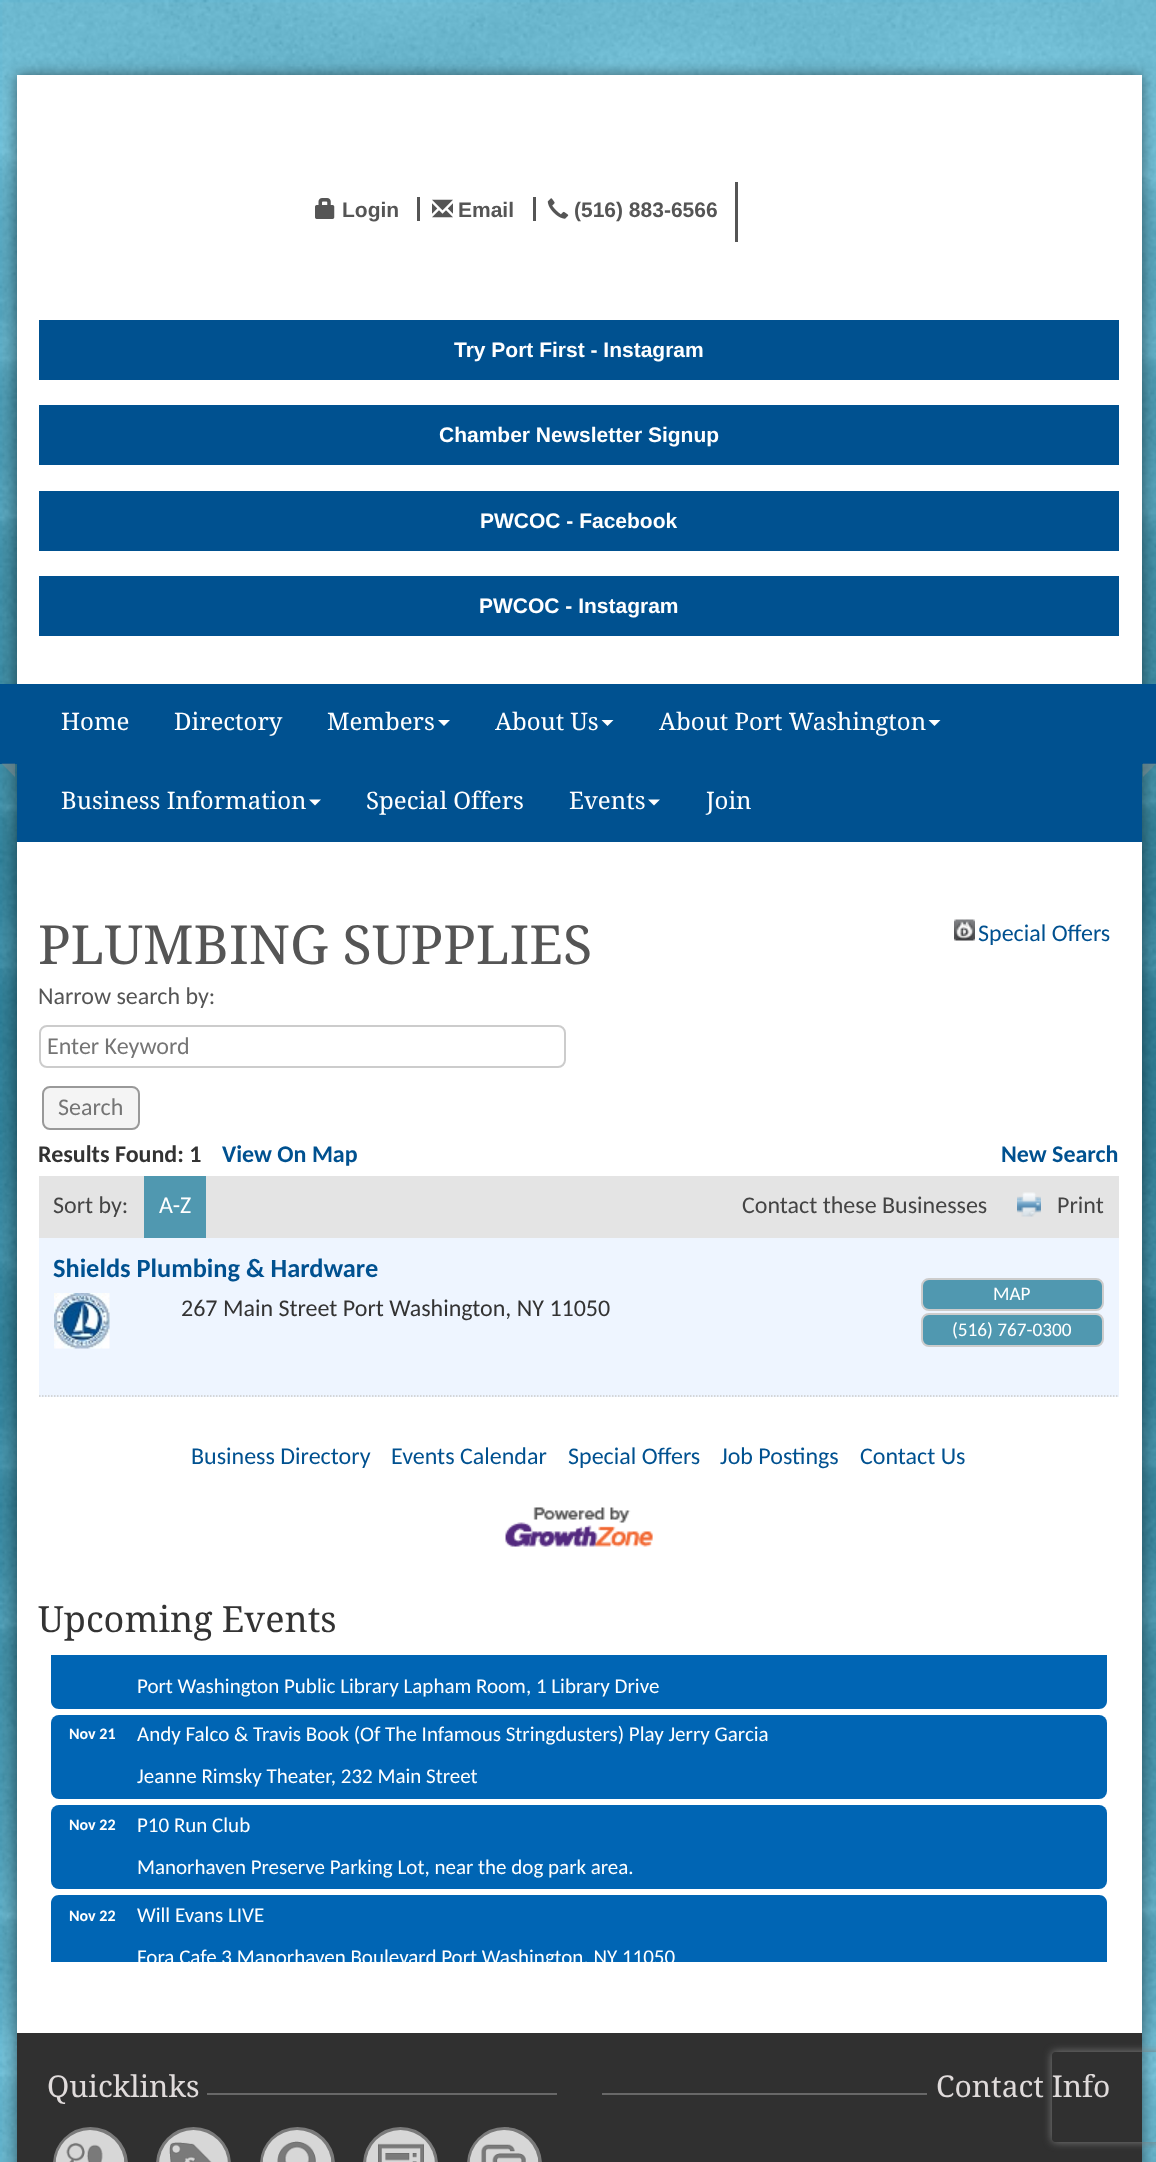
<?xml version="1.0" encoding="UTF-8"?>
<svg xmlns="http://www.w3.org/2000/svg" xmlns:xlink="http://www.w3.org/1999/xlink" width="1156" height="2162">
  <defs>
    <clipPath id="clip1"><path d="M 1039 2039 h 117 v 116 h -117 z m 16 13 h 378 c 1.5 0 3 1.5 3 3 v 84 c 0 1.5 -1.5 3 -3 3 h -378 c -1.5 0 -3 -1.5 -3 -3 v -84 c 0 -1.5 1.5 -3 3 -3 z" clip-rule="evenodd" /></clipPath>
    <clipPath id="clip2"><rect x="51" y="1655" width="1056" height="307" /></clipPath>
  </defs>
  <rect width="100%" height="100%" fill="#00c3ff" />
  <image x="0" y="0" width="1156" height="2162" xlink:href="image1.png" />
  <rect x="17" y="75" width="1125" height="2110" fill="#000000" fill-opacity="0.5" filter="blur(7.5px)" />
  <rect x="17" y="75" width="1125" height="1958" fill="#ffffff" />
  <image x="315" y="198" width="20" height="21" xlink:href="image2.png" />
  <rect x="417" y="197" width="3" height="24" fill="#555555" />
  <image x="432" y="199" width="21" height="19" xlink:href="image3.png" />
  <rect x="533" y="197" width="3" height="24" fill="#555555" />
  <image x="547" y="198" width="22" height="21" xlink:href="image4.png" />
  <rect x="735" y="182" width="3" height="60" fill="#555555" />
  <rect x="39" y="320" width="1080" height="60" fill="#005190" />
  <rect x="39" y="405" width="1080" height="60" fill="#005190" />
  <rect x="39" y="491" width="1080" height="60" fill="#005190" />
  <rect x="39" y="576" width="1080" height="60" fill="#005190" />
  <rect x="17" y="684" width="1125" height="158" fill="#005190" />
  <rect y="684" width="17" height="80" fill="#005190" />
  <path d="M 15 763.5 v 13.5 l -13.5 -13.5 z" fill="#888888" fill-opacity="0.48" />
  <path d="M 438 720 h 12 l -6 6 z" fill="#ffffff" />
  <path d="M 601.5 720 h 12 l -6 6 z" fill="#ffffff" />
  <path d="M 928.5 720 h 12 l -6 6 z" fill="#ffffff" />
  <path d="M 309 799.5 h 12 l -6 6 z" fill="#ffffff" />
  <path d="M 648 799.5 h 12 l -6 6 z" fill="#ffffff" />
  <rect x="1142" y="684" width="14" height="80" fill="#005190" />
  <path d="M 1143 763.5 h 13.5 l -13.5 13.5 z" fill="#888888" fill-opacity="0.48" />
  <image x="954" y="919" width="21" height="22" xlink:href="image5.png" />
  <rect x="40" y="1026" width="525" height="41" rx="7" fill="none" stroke="#cccccc" stroke-width="2" />
  <rect x="43" y="1087" width="96" height="42" rx="7" fill="#f4f4f4" stroke="#999999" stroke-width="2" />
  <rect x="39" y="1176" width="1080" height="62" fill="#e4e4e4" />
  <rect x="144" y="1176" width="62" height="62" fill="#5098b0" />
  <image x="1017" y="1192" width="24" height="25" xlink:href="image6.png" />
  <rect x="39" y="1238" width="1080" height="159" fill="#eef5ff" />
  <path d="M 39 1396 h 1080" fill="none" stroke="#cccccc" stroke-width="1.5" stroke-dasharray="1.5 1.5" />
  <image x="54" y="1293" width="56" height="56" xlink:href="image7.png" />
  <rect x="922" y="1279" width="181" height="31" rx="7" fill="#5098b0" stroke="#cccccc" stroke-width="2" />
  <rect x="922" y="1314" width="181" height="32" rx="7" fill="#5098b0" stroke="#cccccc" stroke-width="2" />
  <image x="505" y="1507" width="148" height="40" xlink:href="image8.png" />
  <path d="M 51 1655 h 1056 v 46 c 0 4.5 -3.5 8 -8 8 h -1040 c -4.5 0 -8 -3.5 -8 -8 z" fill="#0065b4" />
  <rect x="51" y="1715" width="1056" height="84" rx="8" fill="#0065b4" />
  <rect x="51" y="1805" width="1056" height="84" rx="8" fill="#0065b4" />
  <path d="M 59 1895 h 1040 c 4.5 0 8 3.5 8 8 v 59 h -1056 v -59 c 0 -4.5 3.5 -8 8 -8 z" fill="#0065b4" />
  <rect x="17" y="2033" width="1125" height="129" fill="#303030" />
  <rect x="207" y="2093" width="350" height="2" fill="#686868" />
  <circle cx="90.5" cy="2164.5" r="36" fill="#7a7a7a" stroke="#7a7a7a" stroke-width="3" />
  <image x="55" y="2130" width="70" height="32" xlink:href="image9.png" />
  <circle cx="193.5" cy="2164.5" r="36" fill="#7a7a7a" stroke="#7a7a7a" stroke-width="3" />
  <image x="159" y="2130" width="69" height="32" xlink:href="image10.png" />
  <circle cx="297.5" cy="2164.5" r="36" fill="#7a7a7a" stroke="#7a7a7a" stroke-width="3" />
  <image x="262" y="2130" width="70" height="32" xlink:href="image11.png" />
  <circle cx="400.5" cy="2164.5" r="36" fill="#7a7a7a" stroke="#7a7a7a" stroke-width="3" />
  <image x="366" y="2130" width="69" height="32" xlink:href="image12.png" />
  <circle cx="504.5" cy="2164.5" r="36" fill="#7a7a7a" stroke="#7a7a7a" stroke-width="3" />
  <image x="469" y="2130" width="70" height="32" xlink:href="image13.png" />
  <rect x="602" y="2093" width="325" height="2" fill="#686868" />
  <g clip-path="url(#clip1)">
    <rect x="1052" y="2052" width="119" height="90" rx="3" fill="#808080" filter="blur(4px)" />
  </g>
  <text x="342" y="217" style="font-family: Liberation Sans; font-size: 21px; font-weight: bold; fill: #555555">Login</text>
  <text x="458" y="217" style="font-family: Liberation Sans; font-size: 21px; font-weight: bold; fill: #555555">Email</text>
  <text x="574" y="217" style="font-family: Liberation Sans; font-size: 21px; font-weight: bold; fill: #555555">(516) 883-6566</text>
  <text x="454" y="357" style="font-family: Liberation Sans; font-size: 21px; font-weight: bold; fill: #ffffff">Try Port First - Instagram</text>
  <text x="439" y="442" style="font-family: Liberation Sans; font-size: 21px; font-weight: bold; fill: #ffffff">Chamber Newsletter Signup</text>
  <text x="480" y="528" style="font-family: Liberation Sans; font-size: 21px; font-weight: bold; fill: #ffffff">PWCOC - Facebook</text>
  <text x="479" y="613" style="font-family: Liberation Sans; font-size: 21px; font-weight: bold; fill: #ffffff">PWCOC - Instagram</text>
  <text x="61" y="730" style="font-family: Droid Serif; font-size: 24px; fill: #ffffff">Home</text>
  <text x="174" y="730" style="font-family: Droid Serif; font-size: 24px; fill: #ffffff">Directory</text>
  <text x="327" y="730" style="font-family: Droid Serif; font-size: 24px; fill: #ffffff">Members</text>
  <text x="495" y="730" style="font-family: Droid Serif; font-size: 24px; fill: #ffffff">About Us</text>
  <text x="659" y="730" style="font-family: Droid Serif; font-size: 24px; fill: #ffffff">About Port Washington</text>
  <text x="61" y="809" style="font-family: Droid Serif; font-size: 24px; fill: #ffffff">Business Information</text>
  <text x="366" y="809" style="font-family: Droid Serif; font-size: 24px; fill: #ffffff">Special Offers</text>
  <text x="569" y="809" style="font-family: Droid Serif; font-size: 24px; fill: #ffffff">Events</text>
  <text x="706" y="809" style="font-family: Droid Serif; font-size: 24px; fill: #ffffff">Join</text>
  <text x="38" y="964" style="font-family: Droid Serif; font-size: 54px; fill: #555555">PLUMBING SUPPLIES</text>
  <text x="978" y="941" style="font-family: Carlito; font-size: 24px; fill: #005190">Special Offers</text>
  <text x="38" y="1004" style="font-family: Carlito; font-size: 24px; fill: #555555">Narrow search by:</text>
  <text x="47" y="1054" style="font-family: Carlito; font-size: 24px; fill: #757575">Enter Keyword</text>
  <text x="58" y="1115" style="font-family: Carlito; font-size: 24px; fill: #757575">Search</text>
  <text x="38" y="1162" style="font-family: Carlito; font-size: 24px; font-weight: bold; fill: #333333">Results Found: 1</text>
  <text x="222" y="1162" style="font-family: Carlito; font-size: 24px; font-weight: bold; fill: #005190">View On Map</text>
  <text x="1001" y="1162" style="font-family: Carlito; font-size: 24px; font-weight: bold; fill: #005190">New Search</text>
  <text x="53" y="1213" style="font-family: Carlito; font-size: 24px; fill: #444444">Sort by:</text>
  <text x="159" y="1213" style="font-family: Carlito; font-size: 24px; fill: #ffffff">A-Z</text>
  <text x="742" y="1213" style="font-family: Carlito; font-size: 24px; fill: #444444">Contact these Businesses</text>
  <text x="1057" y="1213" style="font-family: Carlito; font-size: 24px; fill: #444444">Print</text>
  <text x="53" y="1277" style="font-family: Carlito; font-size: 26.4px; font-weight: bold; fill: #005190">Shields Plumbing &amp; Hardware</text>
  <text x="181" y="1316" style="font-family: Carlito; font-size: 24px; fill: #333333">267 Main Street Port Washington, NY 11050</text>
  <text x="993" y="1300" style="font-family: Carlito; font-size: 19.25px; fill: #ffffff">MAP</text>
  <text x="952" y="1336" style="font-family: Carlito; font-size: 19.25px; fill: #ffffff">(516) 767-0300</text>
  <text x="191" y="1464" style="font-family: Carlito; font-size: 24px; fill: #005190">Business Directory</text>
  <text x="391" y="1464" style="font-family: Carlito; font-size: 24px; fill: #005190">Events Calendar</text>
  <text x="568" y="1464" style="font-family: Carlito; font-size: 24px; fill: #005190">Special Offers</text>
  <text x="720" y="1464" style="font-family: Carlito; font-size: 24px; fill: #005190">Job Postings</text>
  <text x="860" y="1464" style="font-family: Carlito; font-size: 24px; fill: #005190">Contact Us</text>
  <text x="38" y="1632" style="font-family: Droid Serif; font-size: 36px; fill: #333333">Upcoming Events</text>
  <text x="137" y="1693" style="font-family: Carlito; font-size: 21px; fill: #ffffff">Port Washington Public Library Lapham Room, 1 Library Drive</text>
  <text x="69" y="1739" style="font-family: Carlito; font-size: 16px; font-weight: bold; fill: #ffffff">Nov 21</text>
  <text x="137" y="1741" style="font-family: Carlito; font-size: 21px; fill: #ffffff">Andy Falco &amp; Travis Book (Of The Infamous Stringdusters) Play Jerry Garcia</text>
  <text x="137" y="1783" style="font-family: Carlito; font-size: 21px; fill: #ffffff">Jeanne Rimsky Theater, 232 Main Street</text>
  <text x="69" y="1830" style="font-family: Carlito; font-size: 16px; font-weight: bold; fill: #ffffff">Nov 22</text>
  <text x="137" y="1832" style="font-family: Carlito; font-size: 21px; fill: #ffffff">P10 Run Club</text>
  <text x="137" y="1874" style="font-family: Carlito; font-size: 21px; fill: #ffffff">Manorhaven Preserve Parking Lot, near the dog park area.</text>
  <text x="69" y="1921" style="font-family: Carlito; font-size: 16px; font-weight: bold; fill: #ffffff">Nov 22</text>
  <text x="137" y="1922" style="font-family: Carlito; font-size: 21px; fill: #ffffff">Will Evans LIVE</text>
  <g clip-path="url(#clip2)">
    <text x="137" y="1964" style="font-family: Carlito; font-size: 21px; fill: #ffffff">Fora Cafe 3 Manorhaven Boulevard Port Washington, NY 11050</text>
  </g>
  <text x="47" y="2097" style="font-family: Droid Serif; font-size: 30px; fill: #e0dbdb">Quicklinks</text>
  <text x="936" y="2097" style="font-family: Droid Serif; font-size: 30px; fill: #e0dbdb">Contact Info</text>
</svg>
